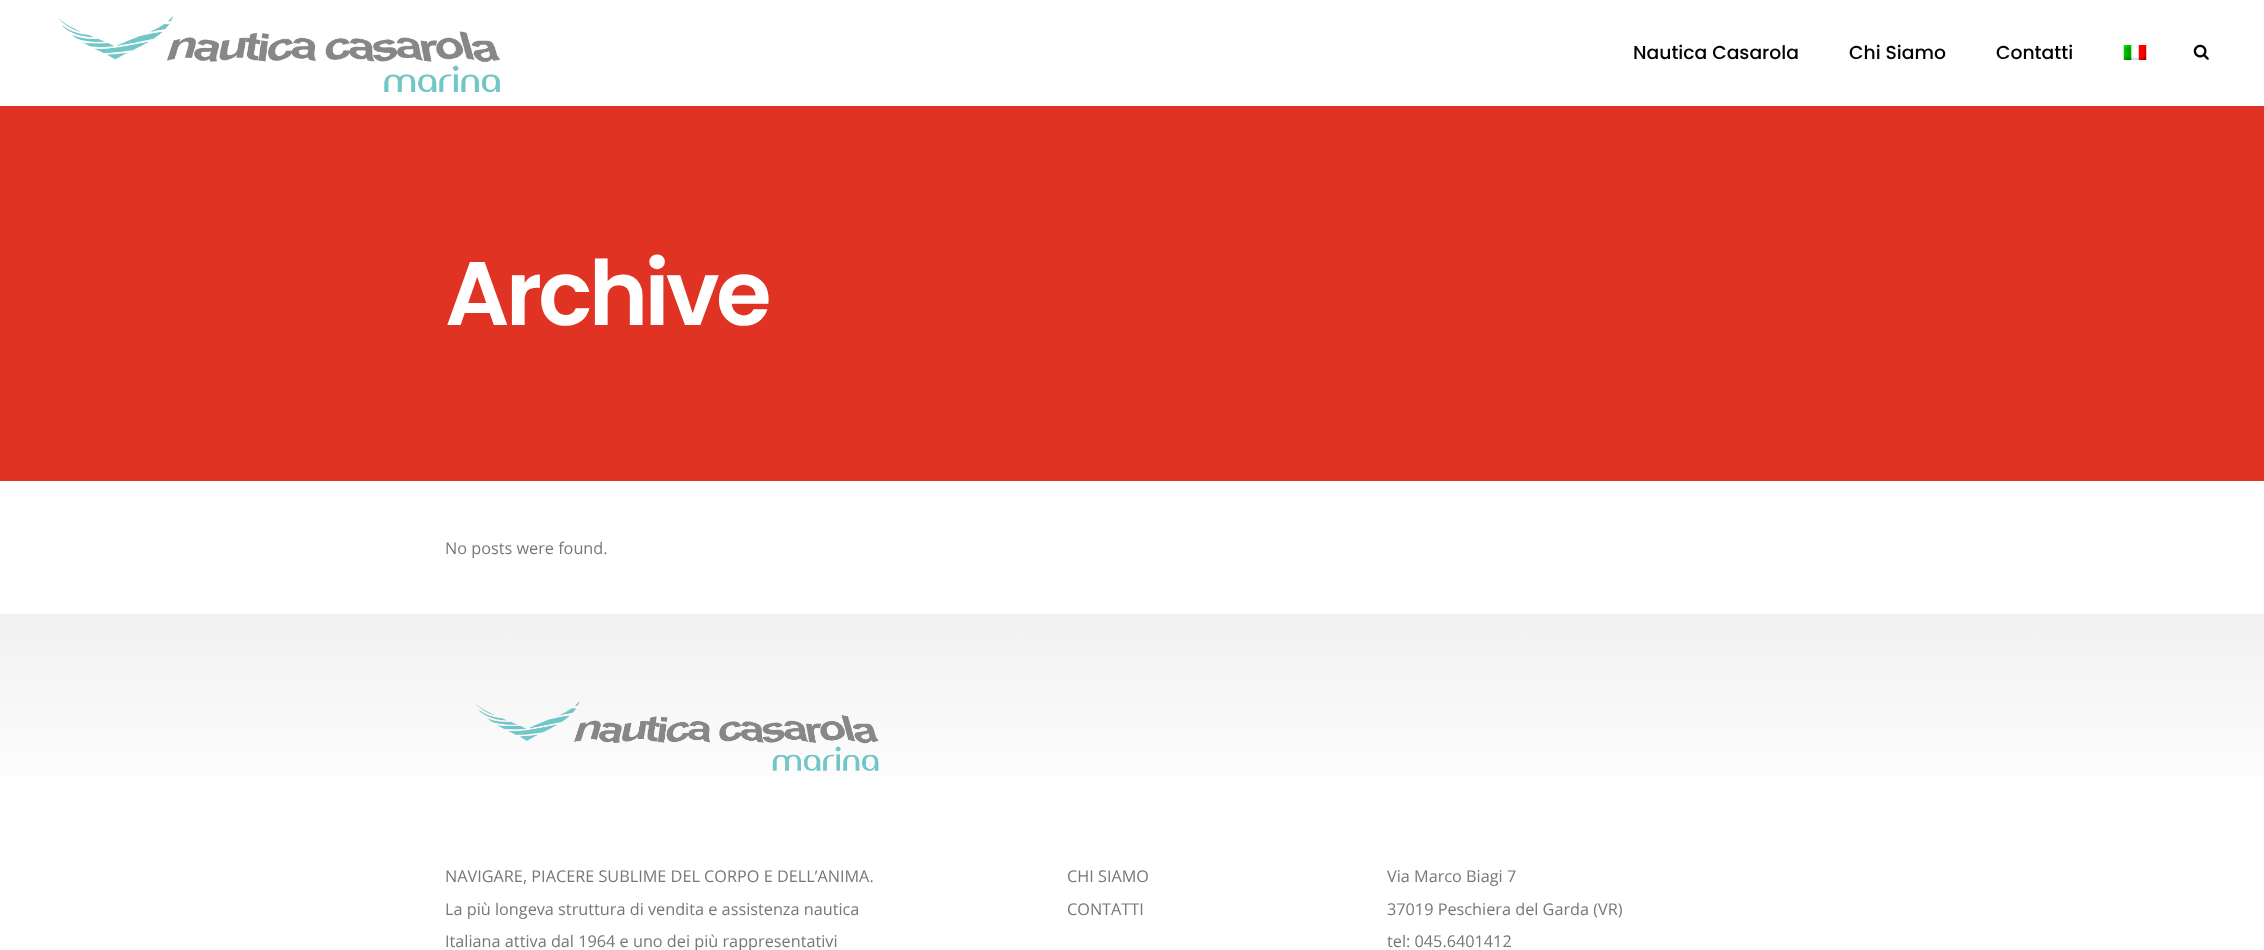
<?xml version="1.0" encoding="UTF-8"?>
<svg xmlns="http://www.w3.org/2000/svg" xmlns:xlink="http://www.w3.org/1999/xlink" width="2264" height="950">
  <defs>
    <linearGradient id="g1" gradientUnits="userSpaceOnUse" x1="1133" y1="614" x2="1133" y2="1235"><stop offset="0" stop-color="#f1f1f1" /><stop offset="0.32" stop-color="#ffffff" /></linearGradient>
  </defs>
  <rect width="100%" height="100%" fill="#ffffff" />
  <image x="58" y="16" width="442" height="76" xlink:href="image1.png" />
  <image x="2123" y="45" width="24" height="15" xlink:href="image2.png" />
  <image x="2193" y="44" width="16" height="16" xlink:href="image3.png" />
  <rect y="106" width="2264" height="375" fill="#e13324" />
  <rect y="614" width="2264" height="163" fill="url(#g1)" />
  <image x="475" y="701" width="404" height="70" xlink:href="image4.png" />
  <text x="1633" y="59" style="font-family: Poppins; font-size: 18.75px; font-weight: 500; fill: #000000">Nautica Casarola</text>
  <text x="1849" y="59" style="font-family: Poppins; font-size: 18.75px; font-weight: 500; fill: #000000">Chi Siamo</text>
  <text x="1996" y="59" style="font-family: Poppins; font-size: 18.75px; font-weight: 500; fill: #000000">Contatti</text>
  <text x="445" y="325" style="font-family: Poppins; font-size: 90px; font-weight: 600; letter-spacing: -3.75px; fill: #ffffff">Archive</text>
  <text x="445" y="554" style="font-family: Open Sans; font-size: 16.25px; fill: #777777">No posts were found.</text>
  <text x="445" y="882" style="font-family: Open Sans; font-size: 16.25px; fill: #777777">NAVIGARE, PIACERE SUBLIME DEL CORPO E DELL’ANIMA.</text>
  <text x="445" y="915" style="font-family: Open Sans; font-size: 16.25px; fill: #777777">La più longeva struttura di vendita e assistenza nautica</text>
  <text x="445" y="947" style="font-family: Open Sans; font-size: 16.25px; fill: #777777">Italiana attiva dal 1964 e uno dei più rappresentativi</text>
  <text x="1067" y="882" style="font-family: Open Sans; font-size: 16.25px; fill: #777777">CHI SIAMO</text>
  <text x="1067" y="915" style="font-family: Open Sans; font-size: 16.25px; fill: #777777">CONTATTI</text>
  <text x="1387" y="882" style="font-family: Open Sans; font-size: 16.25px; fill: #777777">Via Marco Biagi 7</text>
  <text x="1387" y="915" style="font-family: Open Sans; font-size: 16.25px; fill: #777777">37019 Peschiera del Garda (VR)</text>
  <text x="1387" y="947" style="font-family: Open Sans; font-size: 16.25px; fill: #777777">tel: 045.6401412</text>
</svg>
